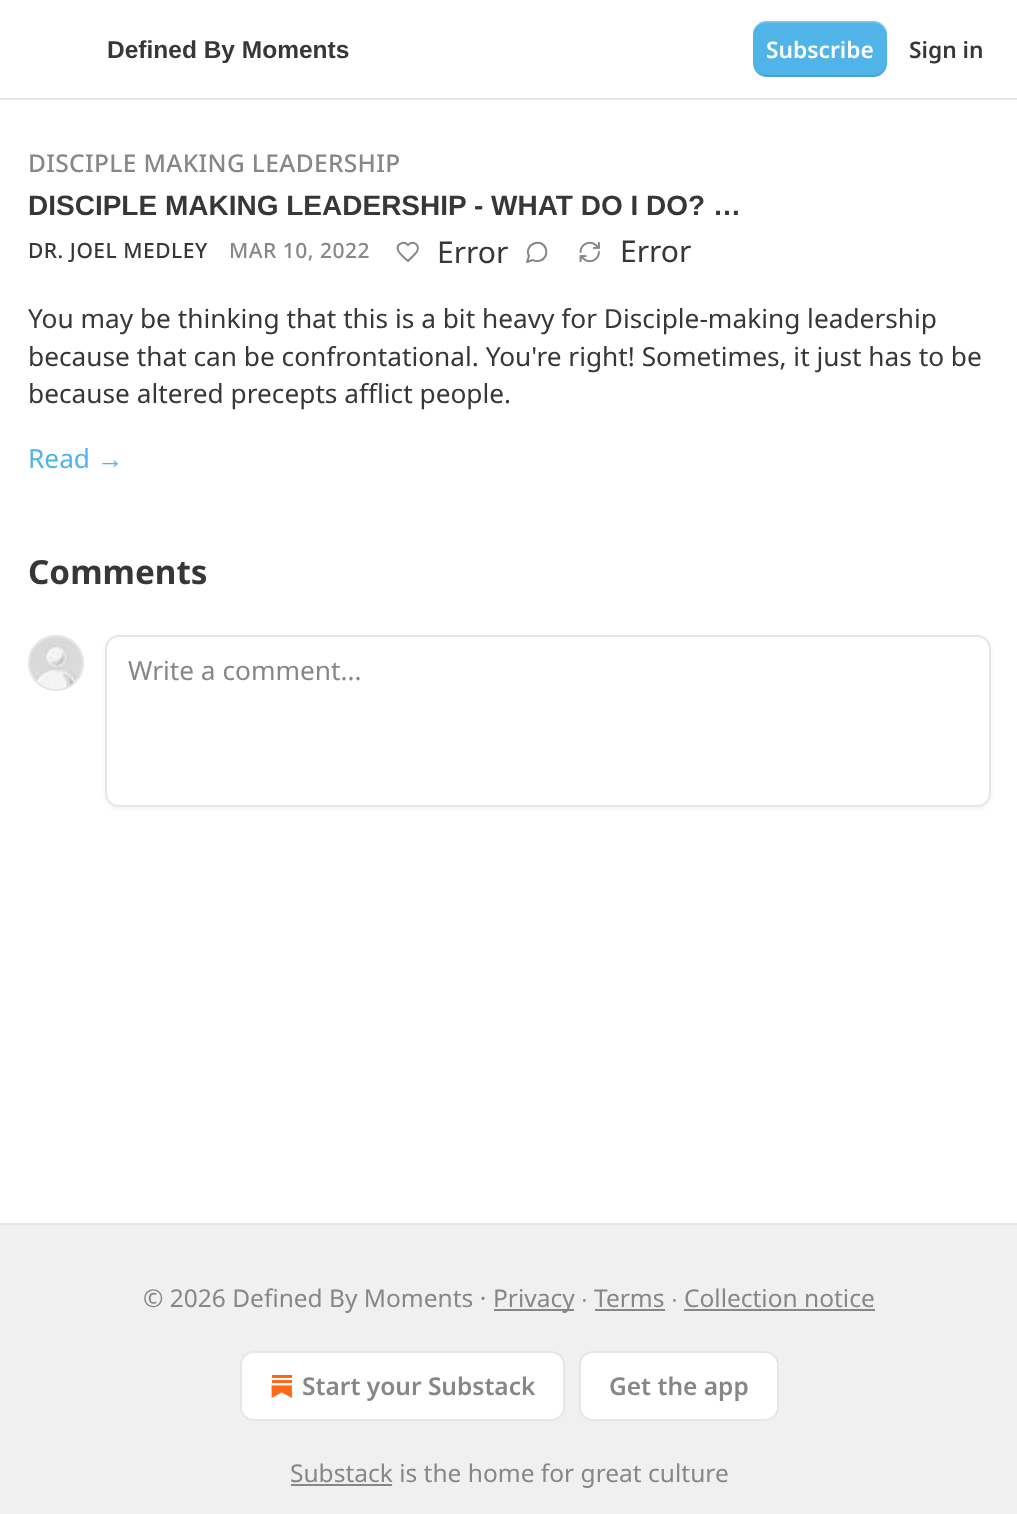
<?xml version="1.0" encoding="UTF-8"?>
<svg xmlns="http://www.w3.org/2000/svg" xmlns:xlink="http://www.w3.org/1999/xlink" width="1017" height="1514">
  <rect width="100%" height="100%" fill="#ffffff" />
  <rect y="98" width="1017" height="2" fill="#e6e6e6" />
  <rect x="753" y="21" width="134" height="56" rx="14" fill="#51b4e9" />
  <path d="M 754 68 c 2 5 7 9 13 9 h 106 c 8 0 14 -6 14 -14 v -2 c 0 8 -6 14 -14 14 h -107 c -5 0 -10 -3 -12 -7 z" fill="#000000" fill-opacity="0.1" />
  <path d="M 766 23 h 107 c 8 0 14 6 14 14 v -2 c 0 -8 -6 -14 -14 -14 h -106 c -6 0 -11 4 -13 9 c 2 -4 7 -7 12 -7 z" fill="#ffffff" fill-opacity="0.2" />
  <path d="M 415 254 c 7.5 -7.5 -1.5 -15 -7 -9 c -4.5 -4.5 -12 -1 -10 5 c 1 3.5 7 8.5 10 11 z" fill="none" stroke="#868787" stroke-width="2" stroke-linecap="round" stroke-linejoin="round" />
  <path d="M 533 260 c 4.5 2.5 10.5 0.5 12.5 -4 c 1 -2.5 1 -5.5 0 -8 c -5 -11 -22 -3 -16.5 8 l -2 6 z" fill="none" stroke="#868787" stroke-width="2" stroke-linecap="round" stroke-linejoin="round" />
  <image x="579" y="241" width="21" height="22" xlink:href="image1.png" />
  <circle cx="56" cy="663" r="27" fill="none" stroke="#e6e6e6" stroke-width="2" />
  <image x="28" y="635" width="56" height="55" xlink:href="image2.png" />
  <circle cx="56" cy="663" r="27" fill="none" stroke="#e6e6e6" stroke-width="2" />
  <rect x="105" y="637" width="886" height="172" rx="14" fill="#000000" fill-opacity="0.05" filter="blur(2px)" />
  <rect x="106" y="636" width="884" height="170" rx="13" fill="#ffffff" stroke="#e6e6e6" stroke-width="2" />
  <rect y="1225" width="1017" height="289" fill="#f0f0f0" />
  <rect y="1223" width="1017" height="2" fill="#e6e6e6" />
  <rect x="494" y="1309" width="80" height="2" fill="#868787" />
  <rect x="595" y="1309" width="70" height="2" fill="#868787" />
  <rect x="684" y="1309" width="191" height="2" fill="#868787" />
  <rect x="241" y="1352" width="323" height="68" rx="13" fill="#ffffff" stroke="#e6e6e6" stroke-width="2" />
  <image x="271" y="1375" width="21" height="23" xlink:href="image3.png" />
  <rect x="580" y="1352" width="198" height="68" rx="13" fill="#ffffff" stroke="#e6e6e6" stroke-width="2" />
  <rect x="291" y="1484" width="101" height="2" fill="#868787" />
  <text x="107" y="58" style="font-family: Liberation Sans; font-size: 24.5px; font-weight: bold; fill: #363737">Defined By Moments</text>
  <text x="766" y="58" style="font-family: Noto Sans; font-size: 22.75px; font-weight: 600; fill: #ffffff">Subscribe</text>
  <text x="909" y="58" style="font-family: Noto Sans; font-size: 22.75px; font-weight: 600; fill: #363737">Sign in</text>
  <text x="28" y="172" style="font-family: Noto Sans; font-size: 24.5px; font-weight: 500; letter-spacing: 0.35px; fill: #868787">DISCIPLE MAKING LEADERSHIP</text>
  <text x="28" y="215" style="font-family: Liberation Sans; font-size: 28px; font-weight: bold; fill: #363737">DISCIPLE MAKING LEADERSHIP - WHAT DO I DO? …</text>
  <text x="28" y="258" style="font-family: Noto Sans; font-size: 21px; font-weight: 500; letter-spacing: 0.5px; fill: #363737">DR. JOEL MEDLEY</text>
  <text x="229" y="258" style="font-family: Noto Sans; font-size: 21px; font-weight: 500; letter-spacing: 0.5px; fill: #868787">MAR 10, 2022</text>
  <text x="437" y="263" style="font-family: Noto Sans; font-size: 30px; fill: #363737">Error</text>
  <text x="620" y="262" style="font-family: Noto Sans; font-size: 30px; fill: #363737">Error</text>
  <text x="28" y="328" style="font-family: Noto Sans; font-size: 26.25px; fill: #363737">You may be thinking that this is a bit heavy for Disciple-making leadership</text>
  <text x="28" y="366" style="font-family: Noto Sans; font-size: 26.25px; fill: #363737">because that can be confrontational. You're right! Sometimes, it just has to be</text>
  <text x="28" y="403" style="font-family: Noto Sans; font-size: 26.25px; fill: #363737">because altered precepts afflict people.</text>
  <text x="28" y="468" style="font-family: Noto Sans; font-size: 26.25px; fill: #51b4e9">Read</text>
  <text x="97" y="468" style="font-family: Liberation Sans; font-size: 26.25px; fill: #51b4e9">→</text>
  <text x="28" y="584" style="font-family: Noto Sans; font-size: 33.25px; font-weight: bold; fill: #363737">Comments</text>
  <text x="128" y="680" style="font-family: Noto Sans; font-size: 26.25px; fill: #868787">Write a comment...</text>
  <text x="143" y="1307" style="font-family: Noto Sans; font-size: 24.5px; fill: #868787">© 2026 Defined By Moments ·</text>
  <text x="493" y="1307" style="font-family: Noto Sans; font-size: 24.5px; fill: #868787">Privacy</text>
  <text x="581" y="1307" style="font-family: Liberation Sans; font-size: 24.5px; fill: #868787">∙</text>
  <text x="594" y="1307" style="font-family: Noto Sans; font-size: 24.5px; fill: #868787">Terms</text>
  <text x="671" y="1307" style="font-family: Liberation Sans; font-size: 24.5px; fill: #868787">∙</text>
  <text x="684" y="1307" style="font-family: Noto Sans; font-size: 24.5px; fill: #868787">Collection notice</text>
  <text x="302" y="1395" style="font-family: Noto Sans; font-size: 24.5px; font-weight: 600; fill: #868787">Start your Substack</text>
  <text x="609" y="1395" style="font-family: Noto Sans; font-size: 24.5px; font-weight: 600; fill: #868787">Get the app</text>
  <text x="290" y="1482" style="font-family: Noto Sans; font-size: 24.5px; fill: #868787">Substack is the home for great culture</text>
</svg>
